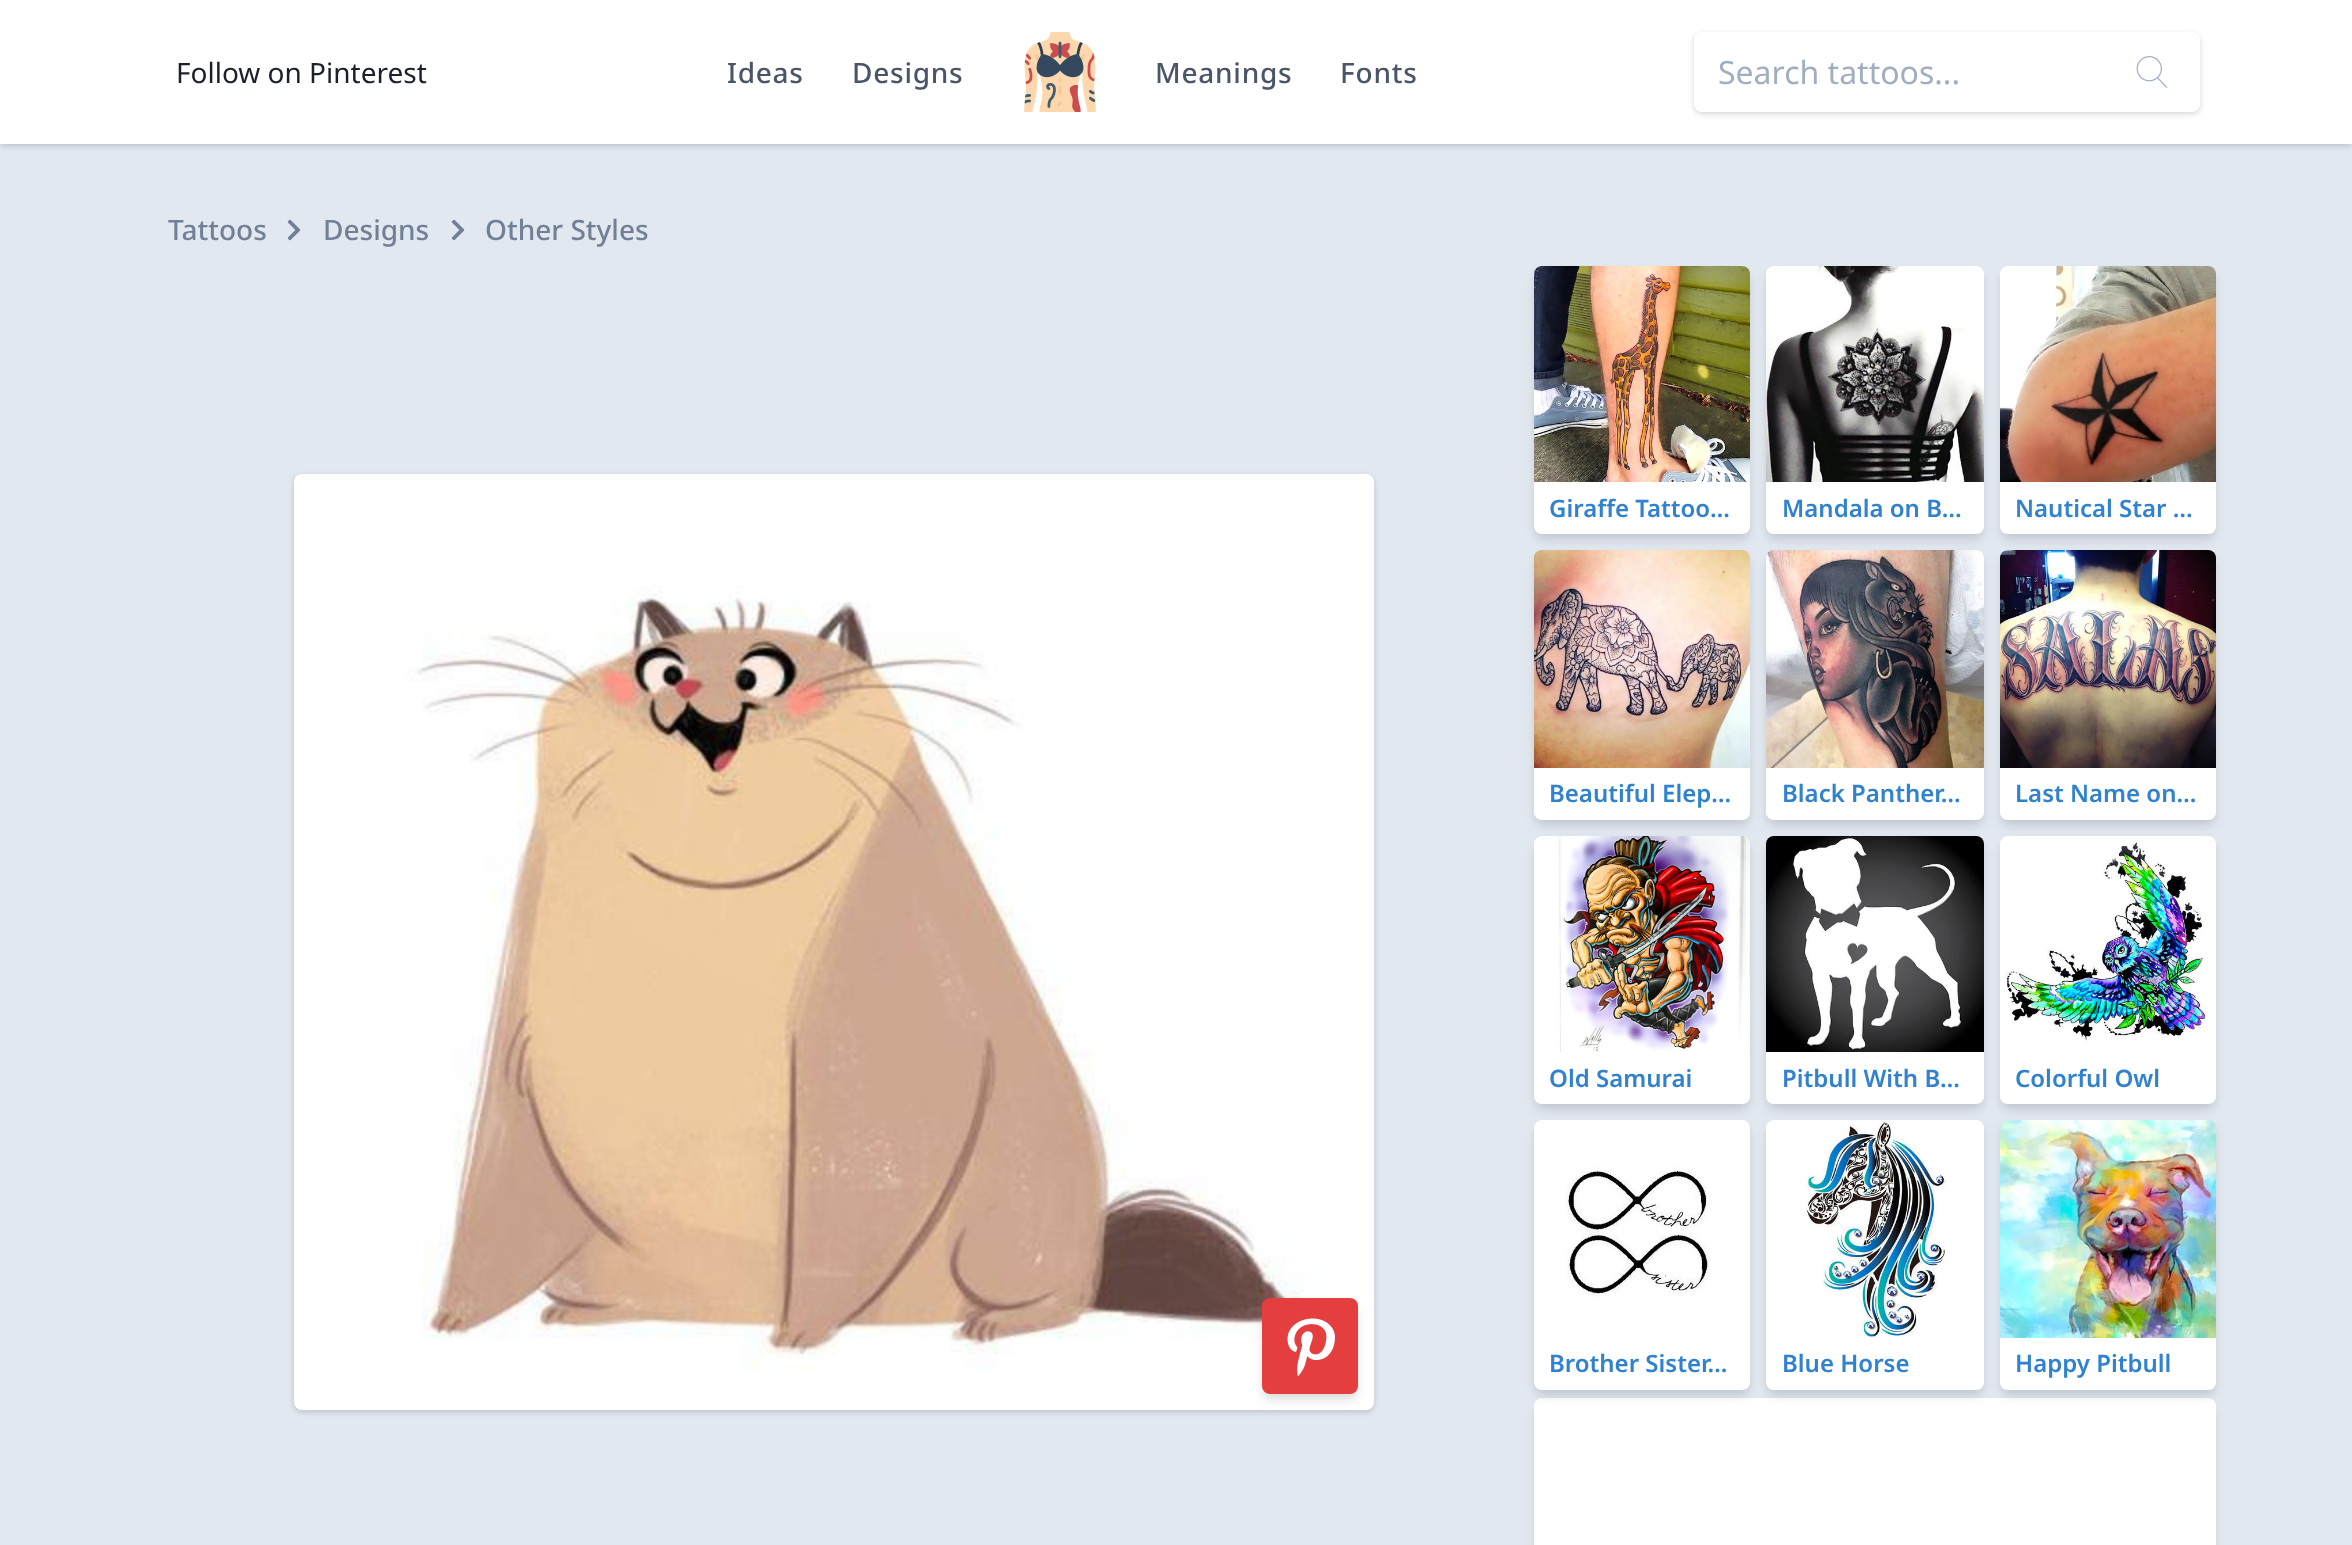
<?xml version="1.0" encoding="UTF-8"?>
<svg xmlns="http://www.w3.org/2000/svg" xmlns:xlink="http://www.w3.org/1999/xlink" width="2352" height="1545">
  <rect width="100%" height="100%" fill="#e2e8f0" />
  <rect y="2" width="2352" height="144" fill="#000000" fill-opacity="0.06" filter="blur(2px)" />
  <rect y="2" width="2352" height="144" fill="#000000" fill-opacity="0.1" filter="blur(3px)" />
  <rect width="2352" height="144" fill="#ffffff" />
  <image x="1024" y="32" width="72" height="80" xlink:href="image1.png" />
  <rect x="1694" y="34" width="506" height="80" rx="8" fill="#000000" fill-opacity="0.06" filter="blur(2px)" />
  <rect x="1694" y="34" width="506" height="80" rx="8" fill="#000000" fill-opacity="0.1" filter="blur(3px)" />
  <rect x="1694" y="32" width="506" height="80" rx="8" fill="#ffffff" />
  <image x="2136" y="56" width="32" height="32" xlink:href="image2.png" />
  <image x="287" y="219" width="14" height="22" xlink:href="image3.png" />
  <image x="451" y="219" width="14" height="22" xlink:href="image3.png" />
  <rect x="294" y="476" width="1080" height="936" rx="8" fill="#000000" fill-opacity="0.06" filter="blur(2px)" />
  <rect x="294" y="476" width="1080" height="936" rx="8" fill="#000000" fill-opacity="0.1" filter="blur(3px)" />
  <image x="294" y="474" width="1080" height="936" xlink:href="image4.png" />
  <rect x="1264" y="1304" width="92" height="92" rx="6" fill="#000000" fill-opacity="0.06" filter="blur(4px)" />
  <rect x="1264" y="1308" width="92" height="92" rx="6" fill="#000000" fill-opacity="0.1" filter="blur(6px)" />
  <rect x="1262" y="1298" width="96" height="96" rx="8" fill="#e53e3e" />
  <image x="1287" y="1318" width="48" height="58" xlink:href="image5.png" />
  <rect x="1536" y="272" width="212" height="264" rx="6" fill="#000000" fill-opacity="0.06" filter="blur(4px)" />
  <rect x="1536" y="276" width="212" height="264" rx="6" fill="#000000" fill-opacity="0.1" filter="blur(6px)" />
  <image x="1534" y="266" width="216" height="216" xlink:href="image6.png" />
  <path d="M 1534 482 h 216 v 44 c 0 4.5 -3.5 8 -8 8 h -200 c -4.5 0 -8 -3.5 -8 -8 z" fill="#ffffff" />
  <rect x="1768" y="272" width="214" height="264" rx="6" fill="#000000" fill-opacity="0.06" filter="blur(4px)" />
  <rect x="1768" y="276" width="214" height="264" rx="6" fill="#000000" fill-opacity="0.1" filter="blur(6px)" />
  <image x="1766" y="266" width="218" height="216" xlink:href="image7.png" />
  <path d="M 1766 482 h 218 v 44 c 0 4.5 -3.5 8 -8 8 h -202 c -4.5 0 -8 -3.5 -8 -8 z" fill="#ffffff" />
  <rect x="2002" y="272" width="212" height="264" rx="6" fill="#000000" fill-opacity="0.06" filter="blur(4px)" />
  <rect x="2002" y="276" width="212" height="264" rx="6" fill="#000000" fill-opacity="0.1" filter="blur(6px)" />
  <image x="2000" y="266" width="216" height="216" xlink:href="image8.png" />
  <path d="M 2000 482 h 216 v 44 c 0 4.5 -3.5 8 -8 8 h -200 c -4.5 0 -8 -3.5 -8 -8 z" fill="#ffffff" />
  <rect x="1536" y="556" width="212" height="266" rx="6" fill="#000000" fill-opacity="0.06" filter="blur(4px)" />
  <rect x="1536" y="560" width="212" height="266" rx="6" fill="#000000" fill-opacity="0.1" filter="blur(6px)" />
  <image x="1534" y="550" width="216" height="218" xlink:href="image9.png" />
  <path d="M 1534 768 h 216 v 44 c 0 4.5 -3.5 8 -8 8 h -200 c -4.5 0 -8 -3.5 -8 -8 z" fill="#ffffff" />
  <rect x="1768" y="556" width="214" height="266" rx="6" fill="#000000" fill-opacity="0.06" filter="blur(4px)" />
  <rect x="1768" y="560" width="214" height="266" rx="6" fill="#000000" fill-opacity="0.1" filter="blur(6px)" />
  <image x="1766" y="550" width="218" height="218" xlink:href="image10.png" />
  <path d="M 1766 768 h 218 v 44 c 0 4.5 -3.5 8 -8 8 h -202 c -4.5 0 -8 -3.5 -8 -8 z" fill="#ffffff" />
  <rect x="2002" y="556" width="212" height="266" rx="6" fill="#000000" fill-opacity="0.06" filter="blur(4px)" />
  <rect x="2002" y="560" width="212" height="266" rx="6" fill="#000000" fill-opacity="0.1" filter="blur(6px)" />
  <image x="2000" y="550" width="216" height="218" xlink:href="image11.png" />
  <path d="M 2000 768 h 216 v 44 c 0 4.5 -3.5 8 -8 8 h -200 c -4.5 0 -8 -3.5 -8 -8 z" fill="#ffffff" />
  <rect x="1536" y="842" width="212" height="264" rx="6" fill="#000000" fill-opacity="0.06" filter="blur(4px)" />
  <rect x="1536" y="846" width="212" height="264" rx="6" fill="#000000" fill-opacity="0.1" filter="blur(6px)" />
  <image x="1534" y="836" width="216" height="216" xlink:href="image12.png" />
  <path d="M 1534 1052 h 216 v 44 c 0 4.5 -3.5 8 -8 8 h -200 c -4.5 0 -8 -3.5 -8 -8 z" fill="#ffffff" />
  <rect x="1768" y="842" width="214" height="264" rx="6" fill="#000000" fill-opacity="0.06" filter="blur(4px)" />
  <rect x="1768" y="846" width="214" height="264" rx="6" fill="#000000" fill-opacity="0.1" filter="blur(6px)" />
  <image x="1766" y="836" width="218" height="216" xlink:href="image13.png" />
  <path d="M 1766 1052 h 218 v 44 c 0 4.5 -3.5 8 -8 8 h -202 c -4.5 0 -8 -3.5 -8 -8 z" fill="#ffffff" />
  <rect x="2002" y="842" width="212" height="264" rx="6" fill="#000000" fill-opacity="0.06" filter="blur(4px)" />
  <rect x="2002" y="846" width="212" height="264" rx="6" fill="#000000" fill-opacity="0.1" filter="blur(6px)" />
  <image x="2000" y="836" width="216" height="216" xlink:href="image14.png" />
  <path d="M 2000 1052 h 216 v 44 c 0 4.5 -3.5 8 -8 8 h -200 c -4.5 0 -8 -3.5 -8 -8 z" fill="#ffffff" />
  <rect x="1536" y="1408" width="678" height="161" rx="6" fill="#000000" fill-opacity="0.1" filter="blur(6px)" />
  <rect x="1534" y="1398" width="682" height="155" rx="8" fill="#ffffff" />
  <rect x="1536" y="1126" width="212" height="266" rx="6" fill="#000000" fill-opacity="0.06" filter="blur(4px)" />
  <rect x="1536" y="1130" width="212" height="266" rx="6" fill="#000000" fill-opacity="0.1" filter="blur(6px)" />
  <image x="1534" y="1120" width="216" height="218" xlink:href="image15.png" />
  <path d="M 1534 1338 h 216 v 44 c 0 4.5 -3.5 8 -8 8 h -200 c -4.5 0 -8 -3.5 -8 -8 z" fill="#ffffff" />
  <rect x="1768" y="1126" width="214" height="266" rx="6" fill="#000000" fill-opacity="0.06" filter="blur(4px)" />
  <rect x="1768" y="1130" width="214" height="266" rx="6" fill="#000000" fill-opacity="0.1" filter="blur(6px)" />
  <image x="1766" y="1120" width="218" height="218" xlink:href="image16.png" />
  <path d="M 1766 1338 h 218 v 44 c 0 4.5 -3.5 8 -8 8 h -202 c -4.5 0 -8 -3.5 -8 -8 z" fill="#ffffff" />
  <rect x="2002" y="1126" width="212" height="266" rx="6" fill="#000000" fill-opacity="0.06" filter="blur(4px)" />
  <rect x="2002" y="1130" width="212" height="266" rx="6" fill="#000000" fill-opacity="0.1" filter="blur(6px)" />
  <image x="2000" y="1120" width="216" height="218" xlink:href="image17.png" />
  <path d="M 2000 1338 h 216 v 44 c 0 4.5 -3.5 8 -8 8 h -200 c -4.5 0 -8 -3.5 -8 -8 z" fill="#ffffff" />
  <text x="176" y="83" style="font-family: Noto Sans; font-size: 28px; fill: #1a202c">Follow on Pinterest</text>
  <text x="727" y="83" style="font-family: Noto Sans; font-size: 28px; font-weight: 500; letter-spacing: 0.75px; fill: #4a5568">Ideas</text>
  <text x="852" y="83" style="font-family: Noto Sans; font-size: 28px; font-weight: 500; letter-spacing: 0.75px; fill: #4a5568">Designs</text>
  <text x="1155" y="83" style="font-family: Noto Sans; font-size: 28px; font-weight: 500; letter-spacing: 0.75px; fill: #4a5568">Meanings</text>
  <text x="1340" y="83" style="font-family: Noto Sans; font-size: 28px; font-weight: 500; letter-spacing: 0.75px; fill: #4a5568">Fonts</text>
  <text x="1718" y="84" style="font-family: Noto Sans; font-size: 32px; fill: #a0aec0">Search tattoos...</text>
  <text x="168" y="240" style="font-family: Noto Sans; font-size: 28px; font-weight: 500; fill: #718096">Tattoos</text>
  <text x="323" y="240" style="font-family: Noto Sans; font-size: 28px; font-weight: 500; fill: #718096">Designs</text>
  <text x="485" y="240" style="font-family: Noto Sans; font-size: 28px; font-weight: 500; fill: #718096">Other Styles</text>
  <text x="1549" y="517" style="font-family: Noto Sans; font-size: 24px; font-weight: 600; fill: #3182ce">Giraffe Tattoo…</text>
  <text x="1782" y="517" style="font-family: Noto Sans; font-size: 24px; font-weight: 600; fill: #3182ce">Mandala on B…</text>
  <text x="2015" y="517" style="font-family: Noto Sans; font-size: 24px; font-weight: 600; fill: #3182ce">Nautical Star …</text>
  <text x="1549" y="802" style="font-family: Noto Sans; font-size: 24px; font-weight: 600; fill: #3182ce">Beautiful Elep…</text>
  <text x="1782" y="802" style="font-family: Noto Sans; font-size: 24px; font-weight: 600; fill: #3182ce">Black Panther…</text>
  <text x="2015" y="802" style="font-family: Noto Sans; font-size: 24px; font-weight: 600; fill: #3182ce">Last Name on…</text>
  <text x="1549" y="1087" style="font-family: Noto Sans; font-size: 24px; font-weight: 600; fill: #3182ce">Old Samurai</text>
  <text x="1782" y="1087" style="font-family: Noto Sans; font-size: 24px; font-weight: 600; fill: #3182ce">Pitbull With B…</text>
  <text x="2015" y="1087" style="font-family: Noto Sans; font-size: 24px; font-weight: 600; fill: #3182ce">Colorful Owl</text>
  <text x="1549" y="1372" style="font-family: Noto Sans; font-size: 24px; font-weight: 600; fill: #3182ce">Brother Sister…</text>
  <text x="1782" y="1372" style="font-family: Noto Sans; font-size: 24px; font-weight: 600; fill: #3182ce">Blue Horse</text>
  <text x="2015" y="1372" style="font-family: Noto Sans; font-size: 24px; font-weight: 600; fill: #3182ce">Happy Pitbull</text>
</svg>
